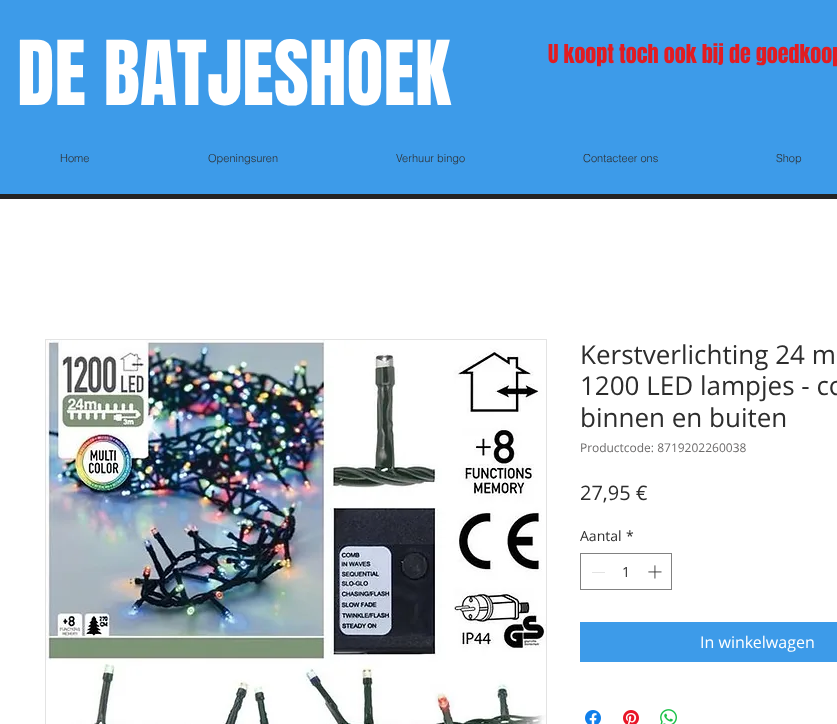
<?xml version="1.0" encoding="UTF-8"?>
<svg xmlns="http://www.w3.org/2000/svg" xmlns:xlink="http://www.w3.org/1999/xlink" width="837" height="724">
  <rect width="100%" height="100%" fill="#3d9be9" />
  <rect y="194" width="837" height="5" fill="#242323" />
  <rect y="199" width="837" height="525" fill="#ffffff" />
  <rect x="45.5" y="339.5" width="501" height="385" fill="none" stroke="#e3e3e3" />
  <image x="46" y="340" width="500" height="384" xlink:href="image1.png" />
  <rect x="580.5" y="553.5" width="91" height="36" fill="none" stroke="#818181" />
  <rect x="592" y="572" width="13" height="1" fill="#e3e3e3" />
  <image x="648" y="565" width="14" height="14" xlink:href="image2.png" />
  <rect x="580" y="622" width="257" height="40" fill="#3d9be9" />
  <image x="585" y="710" width="16" height="14" xlink:href="image3.png" />
  <image x="623" y="710" width="16" height="14" xlink:href="image4.png" />
  <image x="660" y="709" width="17" height="15" xlink:href="image5.png" />
  <text x="17" y="105" style="font-family: Anton; font-size: 76px; fill: #ffffff">DE BATJESHOEK</text>
  <text x="548" y="63" style="font-family: Anton; font-size: 22px; fill: #e21c21">U koopt toch ook bij de goedkoop</text>
  <text x="60" y="162" style="font-family: helvetica; font-size: 11px; font-weight: 300; fill: #2d2d2d">Home</text>
  <text x="208" y="162" style="font-family: helvetica; font-size: 11px; font-weight: 300; fill: #2d2d2d">Openingsuren</text>
  <text x="396" y="162" style="font-family: helvetica; font-size: 11px; font-weight: 300; fill: #2d2d2d">Verhuur bingo</text>
  <text x="583" y="162" style="font-family: helvetica; font-size: 11px; font-weight: 300; fill: #2d2d2d">Contacteer ons</text>
  <text x="776" y="162" style="font-family: helvetica; font-size: 11px; font-weight: 300; fill: #2d2d2d">Shop</text>
  <text x="580" y="364" style="font-family: Open Sans; font-size: 26px; fill: #2d2d2d">Kerstverlichting 24 m</text>
  <text x="580" y="395" style="font-family: Open Sans; font-size: 26px; fill: #2d2d2d">1200 LED lampjes - co</text>
  <text x="580" y="427" style="font-family: Open Sans; font-size: 26px; fill: #2d2d2d">binnen en buiten</text>
  <text x="580" y="452" style="font-family: Open Sans; font-size: 12px; fill: #6d6b6b">Productcode: 8719202260038</text>
  <text x="580" y="500" style="font-family: Open Sans; font-size: 20px; fill: #2d2d2d">27,95 €</text>
  <text x="580" y="541" style="font-family: Open Sans; font-size: 14px; fill: #2d2d2d">Aantal</text>
  <text x="626" y="541" style="font-family: Open Sans; font-size: 14px; fill: #2d2d2d">*</text>
  <text x="622" y="577" style="font-family: Open Sans; font-size: 14px; fill: #2d2d2d">1</text>
  <text x="700" y="648" style="font-family: Open Sans; font-size: 16px; fill: #ffffff">In winkelwagen</text>
</svg>
